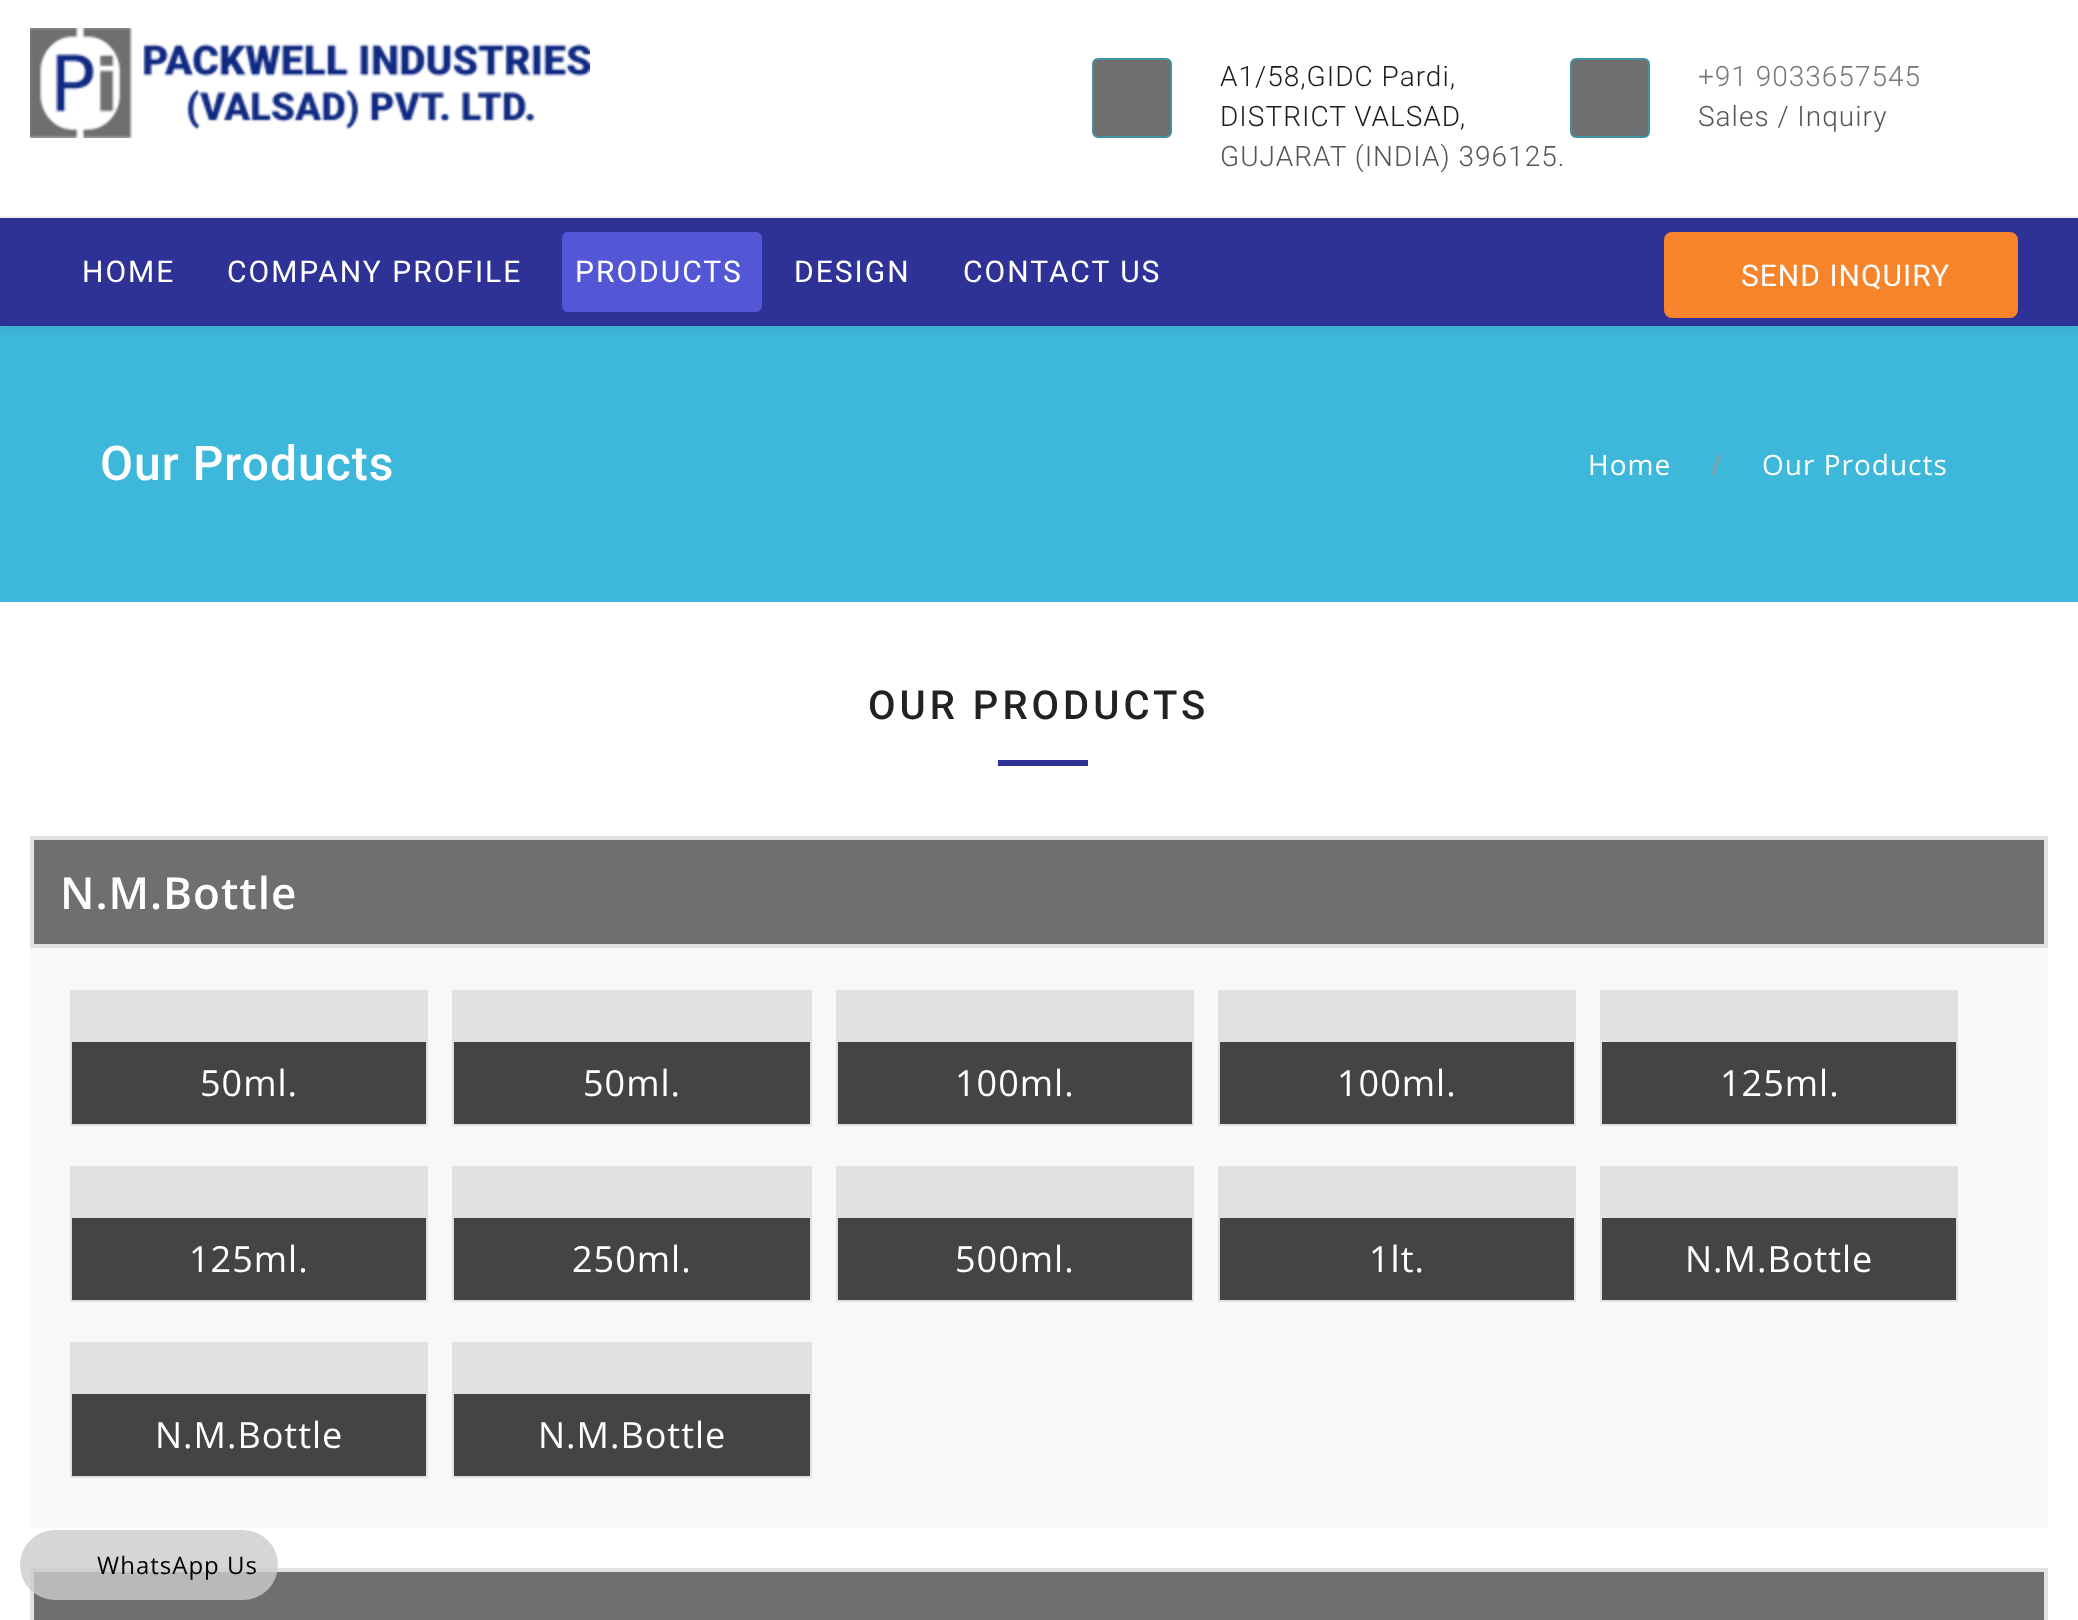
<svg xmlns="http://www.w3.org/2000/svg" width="2078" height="1620">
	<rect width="100%" height="100%" fill="#FFFFFF" />
	<image x="30" y="28" width="560" height="110" href="assets/img1.png" />
	<rect x="1093" y="59" width="78" height="78" rx="5" fill="#6E6F70" stroke="#4191A2" stroke-width="2" />
	<g font-family="Roboto" font-size="28" font-weight="300" letter-spacing="1" fill="#1C1C1C">
		<text x="1220" y="86">A1/58,GIDC Pardi,</text>
		<text x="1220" y="126">DISTRICT VALSAD,</text>
	</g>
	<text x="1220" y="166" font-family="Roboto" font-size="28" font-weight="300" letter-spacing="1" fill="#555555">GUJARAT (INDIA) 396125.</text>
	<rect x="1571" y="59" width="78" height="78" rx="5" fill="#6E6F70" stroke="#4191A2" stroke-width="2" />
	<text x="1698" y="86" font-family="Roboto" font-size="28" font-weight="300" letter-spacing="1" fill="#777777">+91 9033657545</text>
	<text x="1698" y="126" font-family="Roboto" font-size="28" font-weight="300" letter-spacing="1" fill="#555555">Sales / Inquiry</text>
	<rect x="0" y="326" width="2078" height="276" fill="#3DB8DB" />
	<rect x="0" y="222" width="2078" height="110" fill="#000000" fill-opacity="0.05" filter="blur(3px)" />
	<rect x="0" y="218" width="2078" height="108" fill="#2E3195" />
	<rect x="0" y="216" width="2078" height="2" fill="#EEEEEE" />
	<g font-family="Roboto" font-size="30" letter-spacing="2" fill="#FFFFFF">
		<text x="82" y="282">HOME</text>
		<text x="227" y="282">COMPANY PROFILE</text>
	</g>
	<rect x="562" y="232" width="200" height="80" rx="6" fill="#5357D6" />
	<g font-family="Roboto" font-size="30" letter-spacing="2" fill="#FFFFFF">
		<text x="575" y="282">PRODUCTS</text>
		<text x="794" y="282">DESIGN</text>
		<text x="963" y="282">CONTACT US</text>
	</g>
	<rect x="1666" y="234" width="350" height="82" rx="6" fill="#F7832A" stroke="#F7832A" stroke-width="4" />
	<text x="1741" y="286" font-family="Roboto" font-size="30" letter-spacing="1" fill="#FFFFFF">SEND INQUIRY</text>
	<rect x="32" y="1570" width="2014" height="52" fill="#6E6F70" stroke="#E2E2E2" stroke-width="4" />
	<rect x="20" y="1530" width="258" height="70" rx="35" fill="#CCCCCC" fill-opacity="0.8" />
	<text x="97" y="1574" font-family="Open Sans" font-size="24" letter-spacing="1" fill="#000000">WhatsApp Us</text>
	<text x="100" y="480" font-family="Roboto" font-size="48" font-weight="500" letter-spacing="1" fill="#FFFFFF">Our Products</text>
	<text x="1588" y="475" font-family="Open Sans" font-size="28" letter-spacing="1" fill="#FFFFFF">Home</text>
	<text x="1711" y="475" font-family="Open Sans" font-size="28" letter-spacing="1" fill="#999999">/</text>
	<text x="1762" y="475" font-family="Open Sans" font-size="28" letter-spacing="1" fill="#FFFFFF">Our Products</text>
	<text x="868" y="719" font-family="Roboto" font-size="40" font-weight="500" letter-spacing="4" fill="#222222">OUR PRODUCTS</text>
	<rect x="998" y="760" width="90" height="6" fill="#2E3195" />
	<rect x="32" y="838" width="2014" height="108" fill="#6E6F70" stroke="#E2E2E2" stroke-width="4" />
	<text x="60" y="909" font-family="Open Sans" font-size="44" font-weight="600" letter-spacing="1" fill="#FFFFFF">N.M.Bottle</text>
	<rect x="30" y="948" width="2018" height="580" fill="#F8F8F8" />
	<rect x="70" y="990" width="358" height="136" fill="#E1E1E1" />
	<rect x="72" y="1042" width="354" height="82" fill="#444444" />
	<text x="200" y="1096" font-family="Open Sans" font-size="36" letter-spacing="1" fill="#FFFFFF">50ml.</text>
	<rect x="452" y="990" width="360" height="136" fill="#E1E1E1" />
	<rect x="454" y="1042" width="356" height="82" fill="#444444" />
	<text x="583" y="1096" font-family="Open Sans" font-size="36" letter-spacing="1" fill="#FFFFFF">50ml.</text>
	<rect x="836" y="990" width="358" height="136" fill="#E1E1E1" />
	<rect x="838" y="1042" width="354" height="82" fill="#444444" />
	<text x="955" y="1096" font-family="Open Sans" font-size="36" letter-spacing="1" fill="#FFFFFF">100ml.</text>
	<rect x="1218" y="990" width="358" height="136" fill="#E1E1E1" />
	<rect x="1220" y="1042" width="354" height="82" fill="#444444" />
	<text x="1337" y="1096" font-family="Open Sans" font-size="36" letter-spacing="1" fill="#FFFFFF">100ml.</text>
	<rect x="1600" y="990" width="358" height="136" fill="#E1E1E1" />
	<rect x="1602" y="1042" width="354" height="82" fill="#444444" />
	<text x="1720" y="1096" font-family="Open Sans" font-size="36" letter-spacing="1" fill="#FFFFFF">125ml.</text>
	<rect x="70" y="1166" width="358" height="136" fill="#E1E1E1" />
	<rect x="72" y="1218" width="354" height="82" fill="#444444" />
	<text x="189" y="1272" font-family="Open Sans" font-size="36" letter-spacing="1" fill="#FFFFFF">125ml.</text>
	<rect x="452" y="1166" width="360" height="136" fill="#E1E1E1" />
	<rect x="454" y="1218" width="356" height="82" fill="#444444" />
	<text x="572" y="1272" font-family="Open Sans" font-size="36" letter-spacing="1" fill="#FFFFFF">250ml.</text>
	<rect x="836" y="1166" width="358" height="136" fill="#E1E1E1" />
	<rect x="838" y="1218" width="354" height="82" fill="#444444" />
	<text x="955" y="1272" font-family="Open Sans" font-size="36" letter-spacing="1" fill="#FFFFFF">500ml.</text>
	<rect x="1218" y="1166" width="358" height="136" fill="#E1E1E1" />
	<rect x="1220" y="1218" width="354" height="82" fill="#444444" />
	<text x="1369" y="1272" font-family="Open Sans" font-size="36" letter-spacing="1" fill="#FFFFFF">1lt.</text>
	<rect x="1600" y="1166" width="358" height="136" fill="#E1E1E1" />
	<rect x="1602" y="1218" width="354" height="82" fill="#444444" />
	<text x="1685" y="1272" font-family="Open Sans" font-size="36" letter-spacing="1" fill="#FFFFFF">N.M.Bottle</text>
	<rect x="70" y="1342" width="358" height="136" fill="#E1E1E1" />
	<rect x="72" y="1394" width="354" height="82" fill="#444444" />
	<text x="155" y="1448" font-family="Open Sans" font-size="36" letter-spacing="1" fill="#FFFFFF">N.M.Bottle</text>
	<rect x="452" y="1342" width="360" height="136" fill="#E1E1E1" />
	<rect x="454" y="1394" width="356" height="82" fill="#444444" />
	<text x="538" y="1448" font-family="Open Sans" font-size="36" letter-spacing="1" fill="#FFFFFF">N.M.Bottle</text>
</svg>
